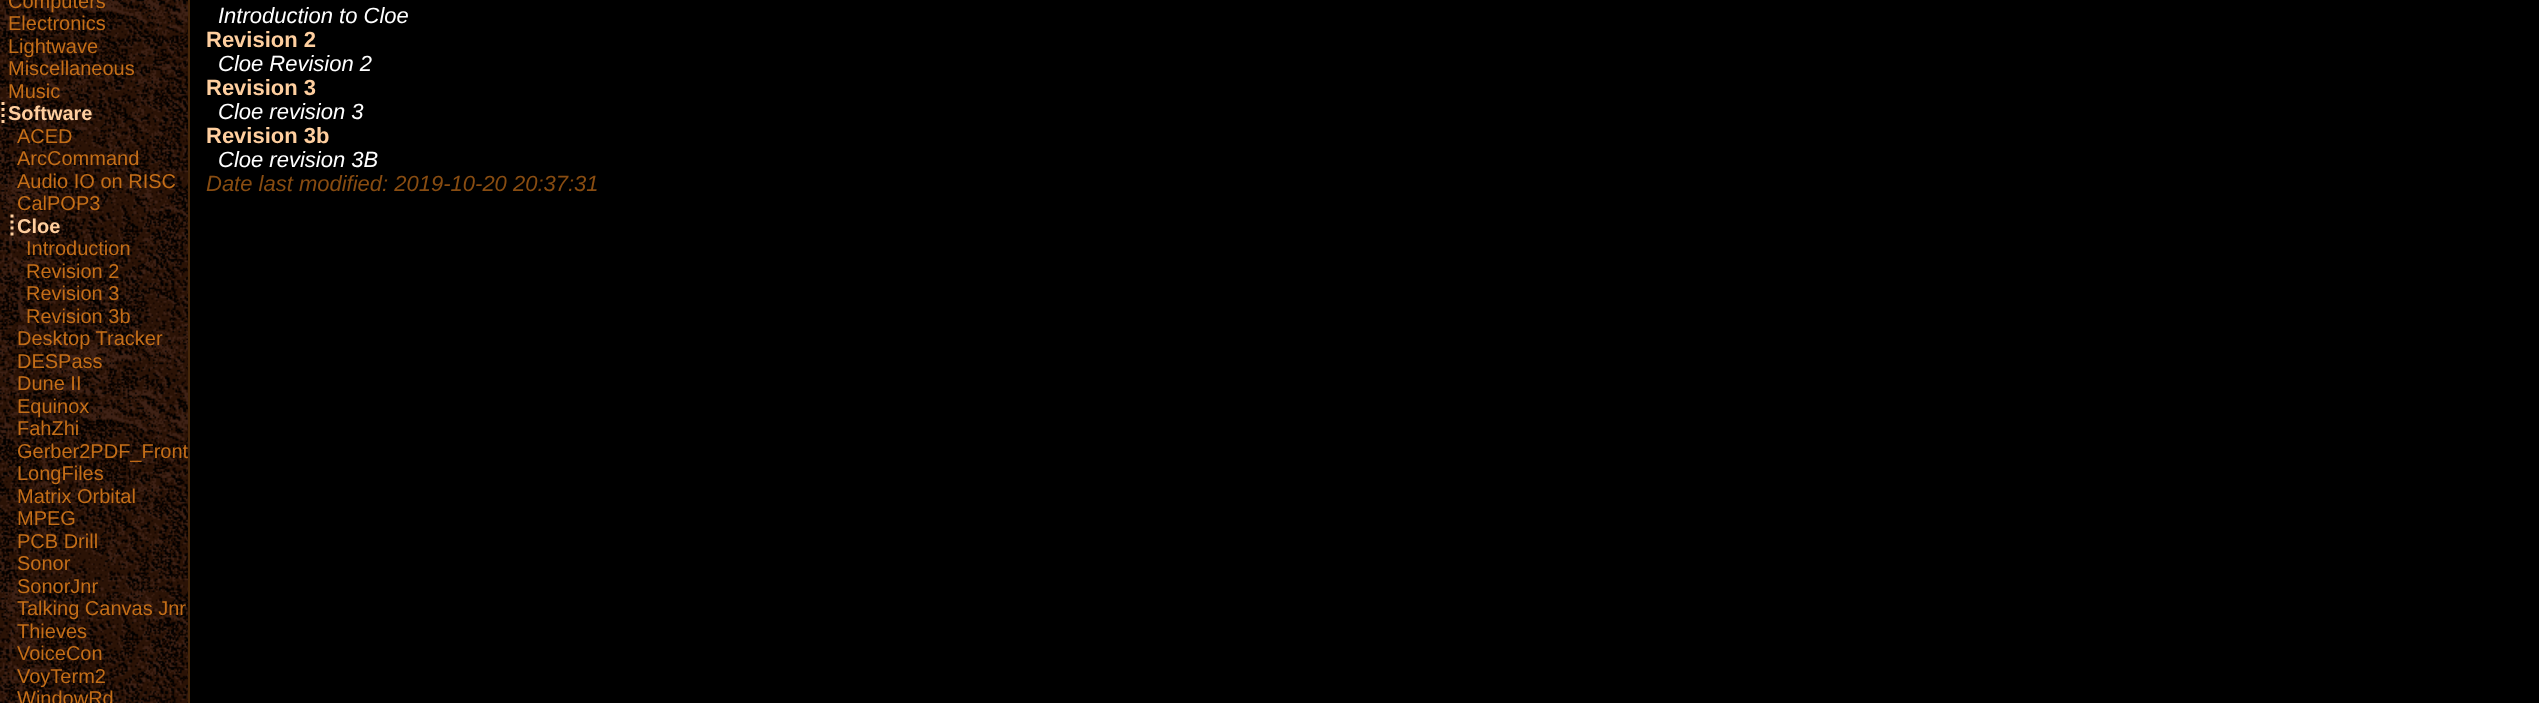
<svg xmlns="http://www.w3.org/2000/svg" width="2539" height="703">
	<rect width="100%" height="100%" fill="#FFFFFF" />
	<image x="0" y="0" width="188" height="703" href="assets/img1.png" />
	<g font-family="Liberation Sans" font-size="20" fill="#C46E18">
		<text x="8" y="8">Computers</text>
		<text x="8" y="30">Electronics</text>
		<text x="8" y="53">Lightwave</text>
		<text x="8" y="75">Miscellaneous</text>
		<text x="8" y="98">Music</text>
	</g>
	<text x="8" y="120" font-family="Liberation Sans" font-size="20" font-weight="700" fill="#FFCF9F">Software</text>
	<path d="M3 102V124.5" fill="none" stroke="#FFCF9F" stroke-width="3" stroke-dasharray="3 3" />
	<g font-family="Liberation Sans" font-size="20" fill="#C46E18">
		<text x="17" y="143">ACED</text>
		<text x="17" y="165">ArcCommand</text>
		<text x="17" y="188">Audio IO on RISC</text>
		<text x="17" y="210">CalPOP3</text>
	</g>
	<text x="17" y="233" font-family="Liberation Sans" font-size="20" font-weight="700" fill="#FFCF9F">Cloe</text>
	<path d="M12 214.5V237" fill="none" stroke="#FFCF9F" stroke-width="3" stroke-dasharray="3 3" />
	<g font-family="Liberation Sans" font-size="20" fill="#C46E18">
		<text x="26" y="255">Introduction</text>
		<text x="26" y="278">Revision 2</text>
		<text x="26" y="300">Revision 3</text>
		<text x="26" y="323">Revision 3b</text>
		<text x="17" y="345">Desktop Tracker</text>
		<text x="17" y="368">DESPass</text>
		<text x="17" y="390">Dune II</text>
		<text x="17" y="413">Equinox</text>
		<text x="17" y="435">FahZhi</text>
		<text x="17" y="458">Gerber2PDF_Front</text>
		<text x="17" y="480">LongFiles</text>
		<text x="17" y="503">Matrix Orbital</text>
		<text x="17" y="525">MPEG</text>
		<text x="17" y="548">PCB Drill</text>
		<text x="17" y="570">Sonor</text>
		<text x="17" y="593">SonorJnr</text>
		<text x="17" y="615">Talking Canvas Jnr</text>
		<text x="17" y="638">Thieves</text>
		<text x="17" y="660">VoiceCon</text>
		<text x="17" y="683">VoyTerm2</text>
		<text x="17" y="705">WindowRd</text>
	</g>
	<rect x="190" y="0" width="2349" height="703" fill="#000000" />
	<path d="M218-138H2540V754H218C201 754 188 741 188 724V-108C188-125 201-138 218-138ZM218-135H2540V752H218C203 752 190 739 190 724V-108C190-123 203-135 218-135Z" fill="#442609" fill-rule="evenodd" />
	<text x="218" y="23" font-family="Liberation Sans" font-size="22" font-style="italic" fill="#FFFFFF">Introduction to Cloe</text>
	<text x="206" y="47" font-family="Liberation Sans" font-size="22" font-weight="700" fill="#FFCF9F">Revision 2</text>
	<text x="218" y="71" font-family="Liberation Sans" font-size="22" font-style="italic" fill="#FFFFFF">Cloe Revision 2</text>
	<text x="206" y="95" font-family="Liberation Sans" font-size="22" font-weight="700" fill="#FFCF9F">Revision 3</text>
	<text x="218" y="119" font-family="Liberation Sans" font-size="22" font-style="italic" fill="#FFFFFF">Cloe revision 3</text>
	<text x="206" y="143" font-family="Liberation Sans" font-size="22" font-weight="700" fill="#FFCF9F">Revision 3b</text>
	<text x="218" y="167" font-family="Liberation Sans" font-size="22" font-style="italic" fill="#FFFFFF">Cloe revision 3B</text>
	<text x="206" y="191" font-family="Liberation Sans" font-size="22" font-style="italic" fill="#884C11">Date last modified: 2019-10-20 20:37:31</text>
</svg>
